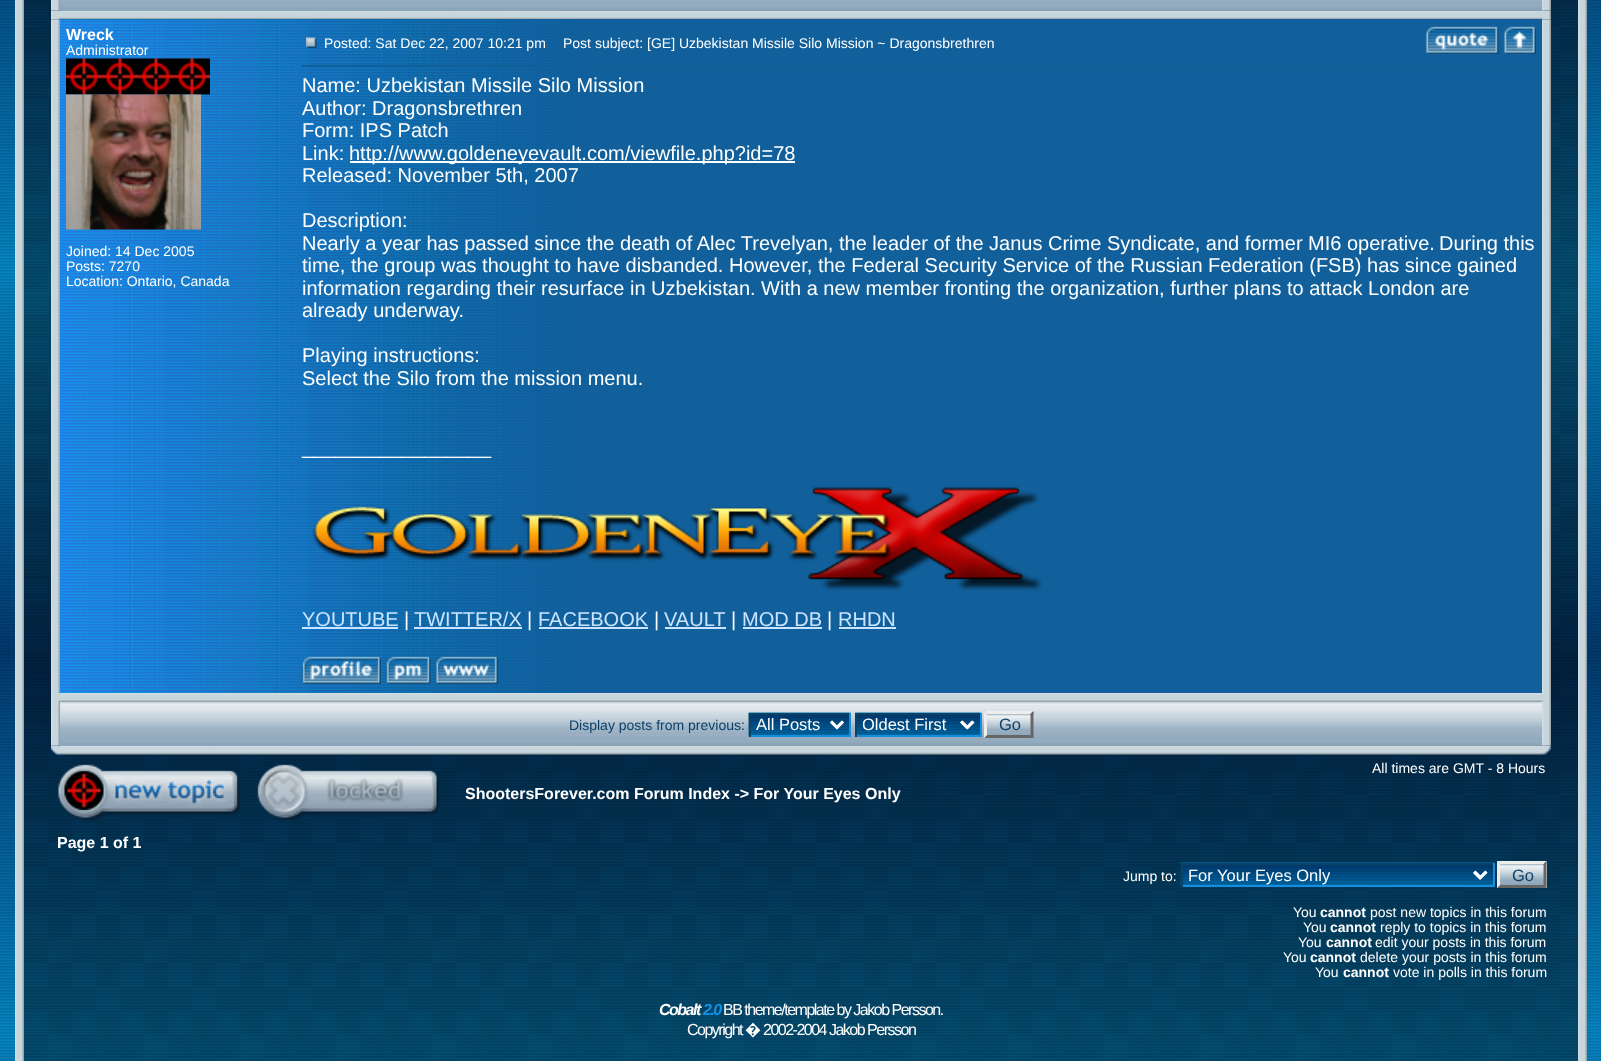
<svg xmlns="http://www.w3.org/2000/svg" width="1601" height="1061">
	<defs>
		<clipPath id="clip1"><rect x="863" y="714" width="93" height="21" /></clipPath>
	</defs>
	<rect width="100%" height="100%" fill="#FFFFFF" />
	<image x="0" y="0" width="1601" height="1061" href="assets/img1.png" />
	<image x="15" y="0" width="9" height="1061" href="assets/img2.png" />
	<image x="24" y="0" width="1554" height="1061" href="assets/img3.png" />
	<image x="51" y="0" width="9" height="11" href="assets/img4.png" />
	<image x="60" y="10" width="500" height="1" href="assets/img5.png" />
	<image x="60" y="0" width="1482" height="11" href="assets/img6.png" />
	<image x="1542" y="0" width="9" height="11" href="assets/img7.png" />
	<image x="51" y="10" width="9" height="10" href="assets/img8.png" />
	<image x="60" y="10" width="1482" height="9" href="assets/img9.png" />
	<image x="1542" y="10" width="9" height="10" href="assets/img10.png" />
	<image x="51" y="19" width="9" height="674" href="assets/img11.png" />
	<rect x="60" y="19" width="1482" height="674" fill="#11609B" />
	<image x="60" y="19" width="519" height="674" href="assets/img12.png" />
	<text x="66" y="40" font-family="Liberation Sans" font-size="16" font-weight="700" fill="#FFFFFF">Wreck</text>
	<text x="66" y="55" font-family="Liberation Sans" font-size="14" fill="#FFFFFF">Administrator</text>
	<image x="66" y="58" width="144" height="37" href="assets/img13.png" />
	<image x="66" y="94" width="135" height="136" href="assets/img14.png" />
	<g font-family="Liberation Sans" font-size="14" fill="#FFFFFF">
		<text x="66" y="256">Joined: 14 Dec 2005</text>
		<text x="66" y="271">Posts: 7270</text>
		<text x="66" y="286">Location: Ontario, Canada</text>
	</g>
	<image x="306" y="37" width="11" height="11" href="assets/img15.png" />
	<g font-family="Liberation Sans" font-size="14" fill="#FFFFFF">
		<text x="324" y="48">Posted: Sat Dec 22, 2007 10:21 pm</text>
		<text x="563" y="48">Post subject: [GE] Uzbekistan Missile Silo Mission ~ Dragonsbrethren</text>
	</g>
	<image x="1425" y="26" width="74" height="28" href="assets/img16.png" />
	<image x="1503" y="26" width="33" height="28" href="assets/img17.png" />
	<rect x="302" y="65" width="1234" height="2" fill="#105F98" />
	<g font-family="Liberation Sans" font-size="20" fill="#FFFFFF">
		<text x="302" y="92">Name: Uzbekistan Missile Silo Mission</text>
		<text x="302" y="115">Author: Dragonsbrethren</text>
		<text x="302" y="137">Form: IPS Patch</text>
		<text x="302" y="160">Link:</text>
	</g>
	<rect x="350" y="161" width="445" height="2" fill="#FFFFFF" />
	<g font-family="Liberation Sans" font-size="20" fill="#FFFFFF">
		<text x="349" y="160">http://www.goldeneyevault.com/viewfile.php?id=78</text>
		<text x="302" y="182">Released: November 5th, 2007</text>
		<text x="302" y="227">Description:</text>
		<text x="302" y="250">Nearly a year has passed since the death of Alec Trevelyan, the leader of the Janus Crime Syndicate, and former MI6 operative.</text>
		<text x="1439" y="250">During this</text>
		<text x="302" y="272">time, the group was thought to have disbanded. However, the Federal Security Service of the Russian Federation (FSB) has since gained</text>
		<text x="302" y="295">information regarding their resurface in Uzbekistan. With a new member fronting the organization, further plans to attack London are</text>
		<text x="302" y="317">already underway.</text>
		<text x="302" y="362">Playing instructions:</text>
		<text x="302" y="385">Select the Silo from the mission menu.</text>
		<text x="302" y="454">_________________</text>
	</g>
	<image x="312" y="487" width="730" height="104" href="assets/img18.png" />
	<text x="302" y="626" font-family="Liberation Sans" font-size="20" fill="#CAE4FF">YOUTUBE</text>
	<rect x="302" y="627" width="96" height="2" fill="#CAE4FF" />
	<text x="404" y="626" font-family="Liberation Sans" font-size="20" fill="#FFFFFF">|</text>
	<text x="414" y="626" font-family="Liberation Sans" font-size="20" fill="#CAE4FF">TWITTER/X</text>
	<rect x="414" y="627" width="108" height="2" fill="#CAE4FF" />
	<text x="527" y="626" font-family="Liberation Sans" font-size="20" fill="#FFFFFF">|</text>
	<text x="538" y="626" font-family="Liberation Sans" font-size="20" fill="#CAE4FF">FACEBOOK</text>
	<rect x="539" y="627" width="109" height="2" fill="#CAE4FF" />
	<text x="654" y="626" font-family="Liberation Sans" font-size="20" fill="#FFFFFF">|</text>
	<text x="664" y="626" font-family="Liberation Sans" font-size="20" fill="#CAE4FF">VAULT</text>
	<rect x="665" y="627" width="61" height="2" fill="#CAE4FF" />
	<text x="731" y="626" font-family="Liberation Sans" font-size="20" fill="#FFFFFF">|</text>
	<text x="742" y="626" font-family="Liberation Sans" font-size="20" fill="#CAE4FF">MOD DB</text>
	<rect x="743" y="627" width="79" height="2" fill="#CAE4FF" />
	<text x="827" y="626" font-family="Liberation Sans" font-size="20" fill="#FFFFFF">|</text>
	<text x="838" y="626" font-family="Liberation Sans" font-size="20" fill="#CAE4FF">RHDN</text>
	<rect x="839" y="627" width="57" height="2" fill="#CAE4FF" />
	<image x="301" y="656" width="80" height="28" href="assets/img19.png" />
	<image x="385" y="656" width="46" height="28" href="assets/img20.png" />
	<image x="435" y="656" width="64" height="28" href="assets/img21.png" />
	<image x="1542" y="19" width="9" height="674" href="assets/img22.png" />
	<image x="51" y="693" width="9" height="9" href="assets/img23.png" />
	<image x="60" y="693" width="1482" height="9" href="assets/img24.png" />
	<image x="1542" y="693" width="9" height="9" href="assets/img25.png" />
	<image x="51" y="702" width="9" height="44" href="assets/img26.png" />
	<image x="60" y="745" width="519" height="1" href="assets/img27.png" />
	<image x="60" y="702" width="1482" height="44" href="assets/img28.png" />
	<text x="569" y="730" font-family="Liberation Sans" font-size="14" fill="#0D406A">Display posts from previous:</text>
	<image x="748" y="712" width="103" height="25" href="assets/img29.png" />
	<rect x="749" y="713" width="102" height="2" fill="#0D4267" />
	<rect x="849" y="713" width="2" height="24" fill="#178DDF" />
	<rect x="749" y="735" width="102" height="2" fill="#178DDF" />
	<rect x="749" y="713" width="2" height="24" fill="#0D4267" />
	<path d="M831 721.5L837 727.5L843 721.5" fill="none" stroke="#FFFFFF" stroke-width="3" />
	<text x="756" y="730" font-family="Liberation Sans" font-size="16.5" fill="#FFFFFF">All Posts</text>
	<image x="855" y="712" width="126" height="23" href="assets/img30.png" />
	<rect x="855" y="713" width="126" height="2" fill="#0D4267" />
	<rect x="980" y="713" width="2" height="24" fill="#178DDF" />
	<rect x="855" y="735" width="126" height="2" fill="#178DDF" />
	<rect x="855" y="713" width="2" height="24" fill="#0D4267" />
	<path d="M961 721.5L967 727.5L973 721.5" fill="none" stroke="#FFFFFF" stroke-width="3" />
	<g clip-path="url(#clip1)">
		<text x="862" y="730" font-family="Liberation Sans" font-size="16.5" fill="#FFFFFF">Oldest First</text>
	</g>
	<image x="984" y="711" width="50" height="27" href="assets/img31.png" />
	<path d="M984 711H1034L1030 714H987Z" fill="#EEEEEE" />
	<path d="M1033.5 711V738L1030.5 735V714Z" fill="#666666" />
	<path d="M1034 738H984L987 735H1030Z" fill="#666666" />
	<path d="M984 738V711L987 714V735Z" fill="#EEEEEE" />
	<text x="999" y="730" font-family="Liberation Sans" font-size="16.5" fill="#0D406A">Go</text>
	<image x="1542" y="702" width="9" height="44" href="assets/img32.png" />
	<image x="51" y="745" width="9" height="10" href="assets/img33.png" />
	<image x="60" y="745" width="1482" height="10" href="assets/img34.png" />
	<image x="1542" y="745" width="9" height="10" href="assets/img35.png" />
	<image x="58" y="764" width="183" height="58" href="assets/img36.png" />
	<image x="257" y="764" width="184" height="58" href="assets/img37.png" />
	<text x="465" y="799" font-family="Liberation Sans" font-size="16" font-weight="700" fill="#FFFFFF">ShootersForever.com Forum Index -&gt; For Your Eyes Only</text>
	<text x="1372" y="773" font-family="Liberation Sans" font-size="14" fill="#FFFFFF">All times are GMT - 8 Hours</text>
	<text x="57" y="848" font-family="Liberation Sans" font-size="16" font-weight="700" fill="#FFFFFF">Page 1 of 1</text>
	<text x="1123" y="881" font-family="Liberation Sans" font-size="14" fill="#FFFFFF">Jump to:</text>
	<image x="1180" y="862" width="314" height="25" href="assets/img38.png" />
	<rect x="1181" y="863" width="313" height="2" fill="#0D4267" />
	<rect x="1493" y="863" width="2" height="24" fill="#178DDF" />
	<rect x="1181" y="885" width="313" height="2" fill="#178DDF" />
	<rect x="1181" y="863" width="2" height="24" fill="#0D4267" />
	<path d="M1474 872L1480 878L1486 872" fill="none" stroke="#FFFFFF" stroke-width="3" />
	<text x="1188" y="881" font-family="Liberation Sans" font-size="16.5" fill="#FFFFFF">For Your Eyes Only</text>
	<rect x="1546" y="861" width="1" height="27" fill="#FAFAFA" />
	<image x="1497" y="861" width="50" height="27" href="assets/img39.png" />
	<path d="M1497 861H1546L1544 864H1500Z" fill="#EEEEEE" />
	<path d="M1546.5 861V888L1543.5 885V864Z" fill="#666666" />
	<path d="M1546 888H1497L1500 885H1544Z" fill="#666666" />
	<path d="M1497 888V861L1500 864V885Z" fill="#EEEEEE" />
	<text x="1512" y="881" font-family="Liberation Sans" font-size="16.5" fill="#0D406A">Go</text>
	<text x="1293" y="917" font-family="Liberation Sans" font-size="14" fill="#FFFFFF">You</text>
	<text x="1320" y="917" font-family="Liberation Sans" font-size="14" font-weight="700" fill="#FFFFFF">cannot</text>
	<g font-family="Liberation Sans" font-size="14" fill="#FFFFFF">
		<text x="1370" y="917">post new topics in this forum</text>
		<text x="1303" y="932">You</text>
	</g>
	<text x="1330" y="932" font-family="Liberation Sans" font-size="14" font-weight="700" fill="#FFFFFF">cannot</text>
	<g font-family="Liberation Sans" font-size="14" fill="#FFFFFF">
		<text x="1380" y="932">reply to topics in this forum</text>
		<text x="1298" y="947">You</text>
	</g>
	<text x="1326" y="947" font-family="Liberation Sans" font-size="14" font-weight="700" fill="#FFFFFF">cannot</text>
	<g font-family="Liberation Sans" font-size="14" fill="#FFFFFF">
		<text x="1375" y="947">edit your posts in this forum</text>
		<text x="1283" y="962">You</text>
	</g>
	<text x="1310" y="962" font-family="Liberation Sans" font-size="14" font-weight="700" fill="#FFFFFF">cannot</text>
	<g font-family="Liberation Sans" font-size="14" fill="#FFFFFF">
		<text x="1360" y="962">delete your posts in this forum</text>
		<text x="1315" y="977">You</text>
	</g>
	<text x="1343" y="977" font-family="Liberation Sans" font-size="14" font-weight="700" fill="#FFFFFF">cannot</text>
	<text x="1393" y="977" font-family="Liberation Sans" font-size="14" fill="#FFFFFF">vote in polls in this forum</text>
	<text x="659" y="1015" font-family="Liberation Sans" font-size="16" font-weight="700" font-style="italic" letter-spacing="-1.5" fill="#FFFFFF">Cobalt</text>
	<text x="703" y="1015" font-family="Liberation Sans" font-size="16" font-weight="700" font-style="italic" letter-spacing="-1.5" fill="#1094E7">2.0</text>
	<g font-family="Liberation Sans" font-size="16" letter-spacing="-1.5" fill="#FFFFFF">
		<text x="723" y="1015">BB theme/template by Jakob Persson.</text>
		<text x="687" y="1035">Copyright</text>
	</g>
	<text x="745" y="1035" font-family="Noto Sans" font-size="16" letter-spacing="-1.5" fill="#FFFFFF">�</text>
	<text x="763" y="1035" font-family="Liberation Sans" font-size="16" letter-spacing="-1.5" fill="#FFFFFF">2002-2004 Jakob Persson</text>
	<image x="1578" y="0" width="9" height="1061" href="assets/img2.png" />
</svg>
